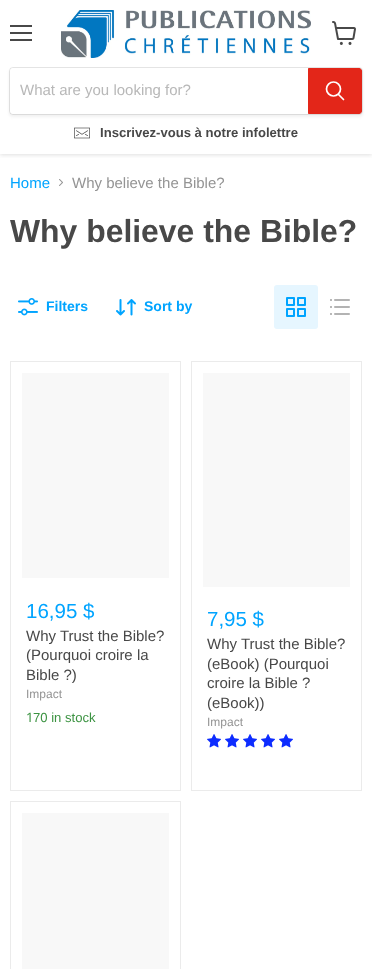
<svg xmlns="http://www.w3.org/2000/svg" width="372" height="969">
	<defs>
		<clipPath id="clip1"><rect x="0" y="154" width="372" height="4" /></clipPath>
	</defs>
	<rect width="100%" height="100%" fill="#FFFFFF" />
	<g clip-path="url(#clip1)">
		<rect x="0" y="1" width="372" height="154" fill="#808080" fill-opacity="0.25" filter="blur(2px)" />
	</g>
	<rect x="10" y="25" width="22" height="2" fill="#484848" />
	<rect x="10" y="32" width="22" height="2" fill="#484848" />
	<rect x="10" y="39" width="22" height="2" fill="#484848" />
	<image x="332" y="21" width="24" height="24" href="assets/img1.png" />
	<image x="61" y="10" width="250" height="48" href="assets/img2.png" />
	<rect x="9" y="69" width="354" height="48" rx="4" fill="#808080" fill-opacity="0.11" filter="blur(1.5px)" />
	<rect x="9.5" y="67.5" width="353" height="47" rx="3.5" fill="none" stroke="#808080" stroke-opacity="0.2" />
	<path d="M13 68H308V114H13C11.5 114 10 112.5 10 111V71C10 69.5 11.5 68 13 68Z" fill="#FFFFFF" />
	<text x="20" y="95" font-family="Liberation Sans" font-size="15" fill="#B8B8B8">What are you looking for?</text>
	<path d="M308.5 68.5H359C360.5 68.5 361.5 69.5 361.5 71V111C361.5 112.5 360.5 113.5 359 113.5H308.5Z" fill="#E32619" stroke="#E32619" />
	<path d="M343.5 99.5L338.5 94.5" fill="none" stroke="#FFFFFF" stroke-width="1.7" stroke-linecap="round" />
	<circle cx="333.5" cy="89" r="7" fill="none" stroke="#FFFFFF" stroke-width="1.7" />
	<image x="74" y="127" width="16" height="12" href="assets/img3.png" />
	<text x="100" y="137" font-family="Liberation Sans" font-size="13.1" font-weight="700" fill="#484848">Inscrivez-vous à notre infolettre</text>
	<text x="10" y="188" font-family="Liberation Sans" font-size="15" fill="#00A4FF">Home</text>
	<image x="59" y="179" width="4" height="7" href="assets/img4.png" />
	<text x="72" y="188" font-family="Liberation Sans" font-size="15" fill="#949494">Why believe the Bible?</text>
	<text x="10" y="242" font-family="Liberation Sans" font-size="31.9" font-weight="700" fill="#484848">Why believe the Bible?</text>
	<image x="18" y="298" width="20" height="18" href="assets/img5.png" />
	<text x="46" y="311" font-family="Liberation Sans" font-size="14" font-weight="700" fill="#00A4FF">Filters</text>
	<image x="116" y="299" width="20" height="17" href="assets/img6.png" />
	<text x="144" y="311" font-family="Liberation Sans" font-size="14" font-weight="700" fill="#00A4FF">Sort by</text>
	<rect x="274" y="285" width="44" height="44" rx="3" fill="#E6F6FF" />
	<image x="286" y="297" width="20" height="20" href="assets/img7.png" />
	<image x="330" y="299" width="20" height="16" href="assets/img8.png" />
	<rect x="10.5" y="361.5" width="170" height="429" fill="none" stroke="#EBEBEB" />
	<rect x="22" y="373" width="147" height="205" fill="#F8F8F8" />
	<text x="26" y="618" font-family="Liberation Sans" font-size="20.5" fill="#00A4FF">16,95 $</text>
	<g font-family="Liberation Sans" font-size="15" fill="#484848">
		<text x="26" y="641">Why Trust the Bible?</text>
		<text x="26" y="660">(Pourquoi croire la</text>
		<text x="26" y="680">Bible ?)</text>
	</g>
	<text x="26" y="698" font-family="Liberation Sans" font-size="12" fill="#949494">Impact</text>
	<text x="26" y="722" font-family="Noto Sans" font-size="13.1" fill="#3C9342">1</text>
	<text x="33" y="722" font-family="Liberation Sans" font-size="13.1" fill="#3C9342">70 in stock</text>
	<rect x="191.5" y="361.5" width="170" height="429" fill="none" stroke="#EBEBEB" />
	<rect x="203" y="373" width="147" height="214" fill="#F8F8F8" />
	<text x="207" y="626" font-family="Liberation Sans" font-size="20.5" fill="#00A4FF">7,95 $</text>
	<g font-family="Liberation Sans" font-size="15" fill="#484848">
		<text x="207" y="649">Why Trust the Bible?</text>
		<text x="207" y="669">(eBook) (Pourquoi</text>
		<text x="207" y="688">croire la Bible ?</text>
		<text x="207" y="708">(eBook))</text>
	</g>
	<text x="207" y="726" font-family="Liberation Sans" font-size="12" fill="#949494">Impact</text>
	<image x="207" y="734" width="14" height="14" href="assets/img9.png" />
	<image x="225" y="734" width="14" height="14" href="assets/img9.png" />
	<image x="243" y="734" width="14" height="14" href="assets/img9.png" />
	<image x="261" y="734" width="14" height="14" href="assets/img9.png" />
	<image x="279" y="734" width="14" height="14" href="assets/img9.png" />
	<rect x="10.5" y="801.5" width="170" height="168" fill="none" stroke="#EBEBEB" />
	<rect x="22" y="813" width="147" height="156" fill="#F8F8F8" />
</svg>
